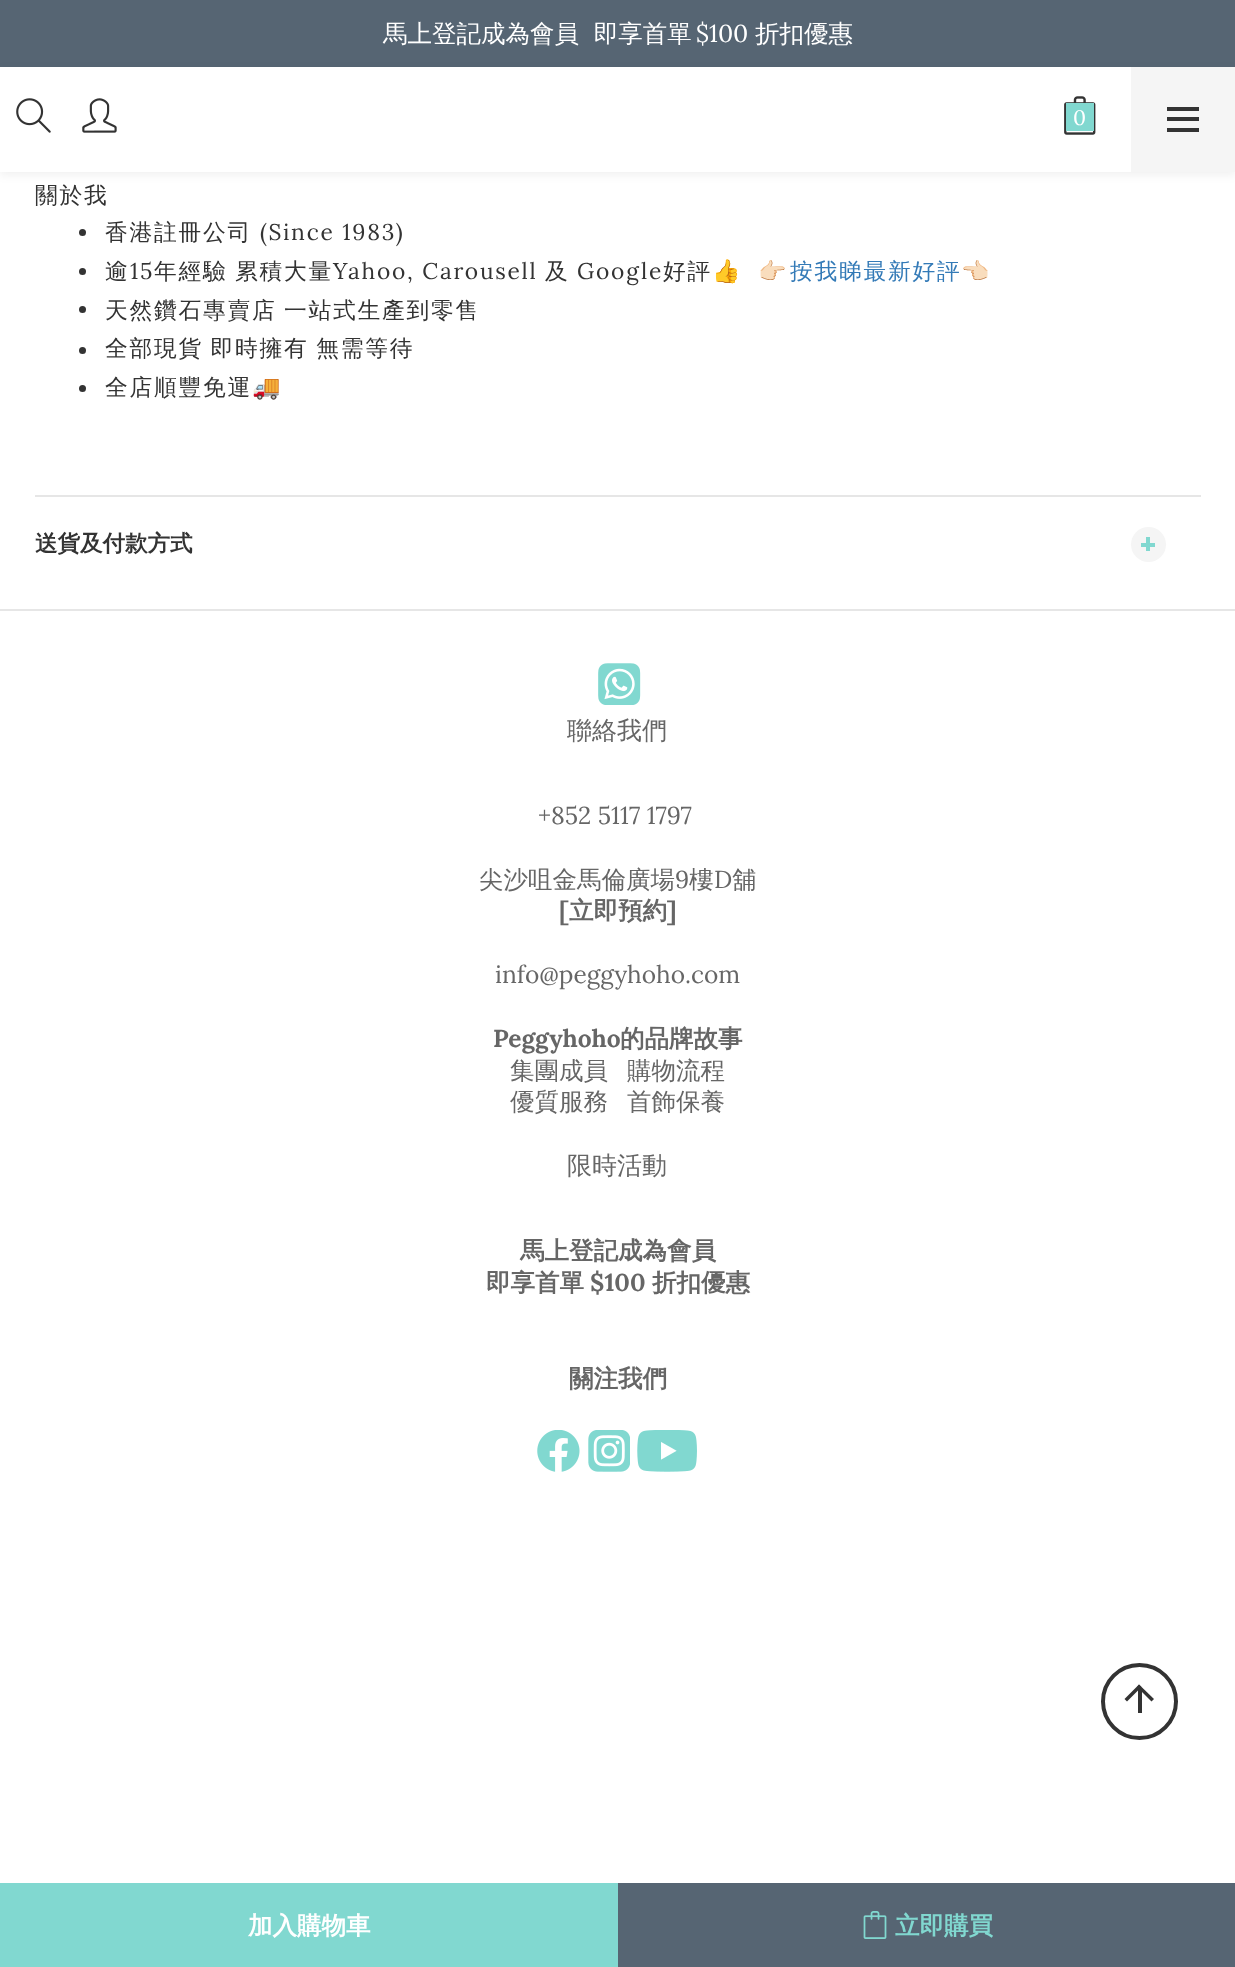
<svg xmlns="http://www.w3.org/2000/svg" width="1235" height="1967">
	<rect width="100%" height="100%" fill="#FFFFFF" />
	<rect x="0" y="0" width="1235" height="67" fill="#566573" />
	<text x="383" y="42" font-family="WenQuanYi Zen Hei" font-size="24.5" font-weight="500" fill="#FFFFFF" xml:space="preserve">馬上登記成為會員  即享首單</text>
	<text x="696" y="42" font-family="Lora" font-size="24.5" fill="#FFFFFF">$100</text>
	<text x="755" y="42" font-family="WenQuanYi Zen Hei" font-size="24.5" font-weight="500" fill="#FFFFFF">折扣優惠</text>
	<rect x="0" y="70" width="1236" height="105" fill="#000000" fill-opacity="0.06" filter="blur(5px)" />
	<rect x="0" y="67" width="1131" height="105" fill="#FFFFFF" />
	<image x="16" y="98" width="35" height="35" href="assets/img1.png" />
	<image x="82" y="98" width="35" height="35" href="assets/img2.png" />
	<image x="1064" y="96" width="32" height="39" href="assets/img3.png" />
	<rect x="1066" y="103" width="28" height="28" fill="#81D8D0" />
	<text x="1073" y="125" font-family="Lora" font-size="21" fill="#FFFFFF">0</text>
	<rect x="1131" y="67" width="104" height="105" fill="#F5F5F5" />
	<rect x="1167" y="117" width="32" height="4" fill="#333333" />
	<rect x="1167" y="107" width="32" height="4" fill="#333333" />
	<rect x="1167" y="128" width="32" height="4" fill="#333333" />
	<text x="35" y="203" font-family="WenQuanYi Zen Hei" font-size="22.75" font-weight="500" letter-spacing="1.75" fill="#333333">關於我</text>
	<circle cx="82.5" cy="232.5" r="3.5" fill="#333333" />
	<text x="105" y="240" font-family="WenQuanYi Zen Hei" font-size="22.75" font-weight="500" letter-spacing="1.75" fill="#333333">香港註冊公司</text>
	<text x="260" y="240" font-family="Lora" font-size="22.75" letter-spacing="1.75" fill="#333333">(Since 1983)</text>
	<circle cx="82.5" cy="271.5" r="3.5" fill="#333333" />
	<text x="105" y="279" font-family="WenQuanYi Zen Hei" font-size="22.75" font-weight="500" letter-spacing="1.75" fill="#333333">逾</text>
	<text x="130" y="279" font-family="Lora" font-size="22.75" letter-spacing="1.75" fill="#333333">15</text>
	<g font-family="WenQuanYi Zen Hei" font-size="22.75" font-weight="500" letter-spacing="1.75" fill="#333333">
		<text x="154" y="279">年經驗</text>
		<text x="235" y="279">累積大量</text>
	</g>
	<text x="333" y="279" font-family="Lora" font-size="22.75" letter-spacing="1.75" fill="#333333">Yahoo, Carousell</text>
	<text x="545" y="279" font-family="WenQuanYi Zen Hei" font-size="22.75" font-weight="500" letter-spacing="1.75" fill="#333333">及</text>
	<text x="577" y="279" font-family="Lora" font-size="22.75" letter-spacing="1.75" fill="#333333">Google</text>
	<text x="663" y="279" font-family="WenQuanYi Zen Hei" font-size="22.75" font-weight="500" letter-spacing="1.75" fill="#333333">好評</text>
	<text x="712" y="279" font-family="Noto Color Emoji" font-size="22.75" letter-spacing="1.75" fill="#333333">👍</text>
	<text x="758" y="279" font-family="Noto Color Emoji" font-size="22.75" letter-spacing="1.75" fill="#337AB7">👉🏻</text>
	<text x="790" y="279" font-family="WenQuanYi Zen Hei" font-size="22.75" font-weight="500" letter-spacing="1.75" fill="#337AB7">按我睇最新好評</text>
	<text x="961" y="279" font-family="Noto Color Emoji" font-size="22.75" letter-spacing="1.75" fill="#337AB7">👈🏻</text>
	<circle cx="82.5" cy="309.5" r="3.5" fill="#333333" />
	<text x="105" y="318" word-spacing="-1" font-family="WenQuanYi Zen Hei" font-size="22.75" font-weight="500" letter-spacing="1.75" fill="#333333">天然鑽石專賣店 一站式生產到零售</text>
	<circle cx="82.5" cy="350.5" r="3.5" fill="#333333" />
	<text x="105" y="356" word-spacing="-1" font-family="WenQuanYi Zen Hei" font-size="22.75" font-weight="500" letter-spacing="1.75" fill="#333333">全部現貨 即時擁有 無需等待</text>
	<circle cx="82.5" cy="388.5" r="3.5" fill="#333333" />
	<text x="105" y="395" font-family="WenQuanYi Zen Hei" font-size="22.75" font-weight="500" letter-spacing="1.75" fill="#333333">全店順豐免運</text>
	<text x="252" y="395" font-family="Noto Color Emoji" font-size="22.75" letter-spacing="1.75" fill="#333333">🚚</text>
	<rect x="35" y="495" width="1166" height="2" fill="#E6E6E6" />
	<text x="35" y="551" font-family="WenQuanYi Zen Hei" font-size="22.5" font-weight="700" fill="#333333">送貨及付款方式</text>
	<circle cx="1148.5" cy="544.5" r="17.5" fill="#F5F5F5" />
	<rect x="1141" y="543" width="14" height="4" fill="#81D8D0" />
	<rect x="1146" y="537" width="4" height="14" fill="#81D8D0" />
	<rect x="0" y="1883" width="618" height="84" fill="#81D8D0" />
	<text x="248" y="1934" font-family="WenQuanYi Zen Hei" font-size="24.5" font-weight="700" fill="#FFFFFF">加入購物車</text>
	<rect x="618" y="1883" width="617" height="84" fill="#566573" />
	<image x="863" y="1911" width="24" height="28" href="assets/img4.png" />
	<text x="895" y="1934" font-family="WenQuanYi Zen Hei" font-size="24.5" font-weight="700" fill="#81D8D0">立即購買</text>
	<rect x="0" y="609" width="1235" height="2" fill="#E6E6E6" />
	<image x="598" y="663" width="43" height="42" href="assets/img5.png" />
	<text x="567" y="739" font-family="WenQuanYi Zen Hei" font-size="25" font-weight="500" fill="#666666">聯絡我們</text>
	<text x="538" y="824" font-family="Lora" font-size="24.5" fill="#666666">+852 5117 1797</text>
	<text x="479" y="888" font-family="WenQuanYi Zen Hei" font-size="24.5" font-weight="500" fill="#666666">尖沙咀金馬倫廣場</text>
	<text x="675" y="888" font-family="Lora" font-size="24.5" fill="#666666">9</text>
	<text x="689" y="888" font-family="WenQuanYi Zen Hei" font-size="24.5" font-weight="500" fill="#666666">樓</text>
	<text x="714" y="888" font-family="Lora" font-size="24.5" fill="#666666">D</text>
	<text x="732" y="888" font-family="WenQuanYi Zen Hei" font-size="24.5" font-weight="500" fill="#666666">舖</text>
	<text x="559" y="919" font-family="Lora" font-size="24.5" font-weight="700" fill="#666666">[</text>
	<text x="569" y="919" font-family="WenQuanYi Zen Hei" font-size="24.5" font-weight="700" fill="#666666">立即預約</text>
	<text x="667" y="919" font-family="Lora" font-size="24.5" font-weight="700" fill="#666666">]</text>
	<text x="495" y="983" font-family="Lora" font-size="24.5" fill="#666666">info@peggyhoho.com</text>
	<text x="493" y="1047" font-family="Lora" font-size="24.5" font-weight="700" fill="#666666">Peggyhoho</text>
	<text x="620" y="1047" font-family="WenQuanYi Zen Hei" font-size="24.5" font-weight="700" fill="#666666">的品牌故事</text>
	<g font-family="WenQuanYi Zen Hei" font-size="24.5" font-weight="500" fill="#666666">
		<text x="510" y="1079">集團成員</text>
		<text x="627" y="1079">購物流程</text>
		<text x="510" y="1110">優質服務</text>
		<text x="627" y="1110">首飾保養</text>
	</g>
	<text x="567" y="1174" font-family="WenQuanYi Zen Hei" font-size="25" font-weight="500" fill="#666666">限時活動</text>
	<g font-family="WenQuanYi Zen Hei" font-size="24.5" font-weight="700" fill="#666666">
		<text x="520" y="1259">馬上登記成為會員</text>
		<text x="486" y="1291">即享首單</text>
	</g>
	<text x="590" y="1291" font-family="Lora" font-size="24.5" font-weight="700" fill="#666666">$100</text>
	<g font-family="WenQuanYi Zen Hei" font-size="24.5" font-weight="700" fill="#666666">
		<text x="652" y="1291">折扣優惠</text>
		<text x="569" y="1387">關注我們</text>
	</g>
	<image x="537" y="1430" width="43" height="42" href="assets/img6.png" />
	<image x="588" y="1430" width="42" height="42" href="assets/img7.png" />
	<image x="637" y="1430" width="60" height="42" href="assets/img8.png" />
	<circle cx="1139.5" cy="1701.5" r="36.5" fill="none" stroke="#333333" stroke-width="4" />
	<path d="M1139 1684.5L1154 1699L1151.5 1701.5L1137 1687Z" fill="#333333" />
	<path d="M1139 1684.5L1141.5 1687L1127 1701.5L1124.5 1699Z" fill="#333333" />
	<rect x="1138" y="1689" width="4" height="24" fill="#333333" />
</svg>
